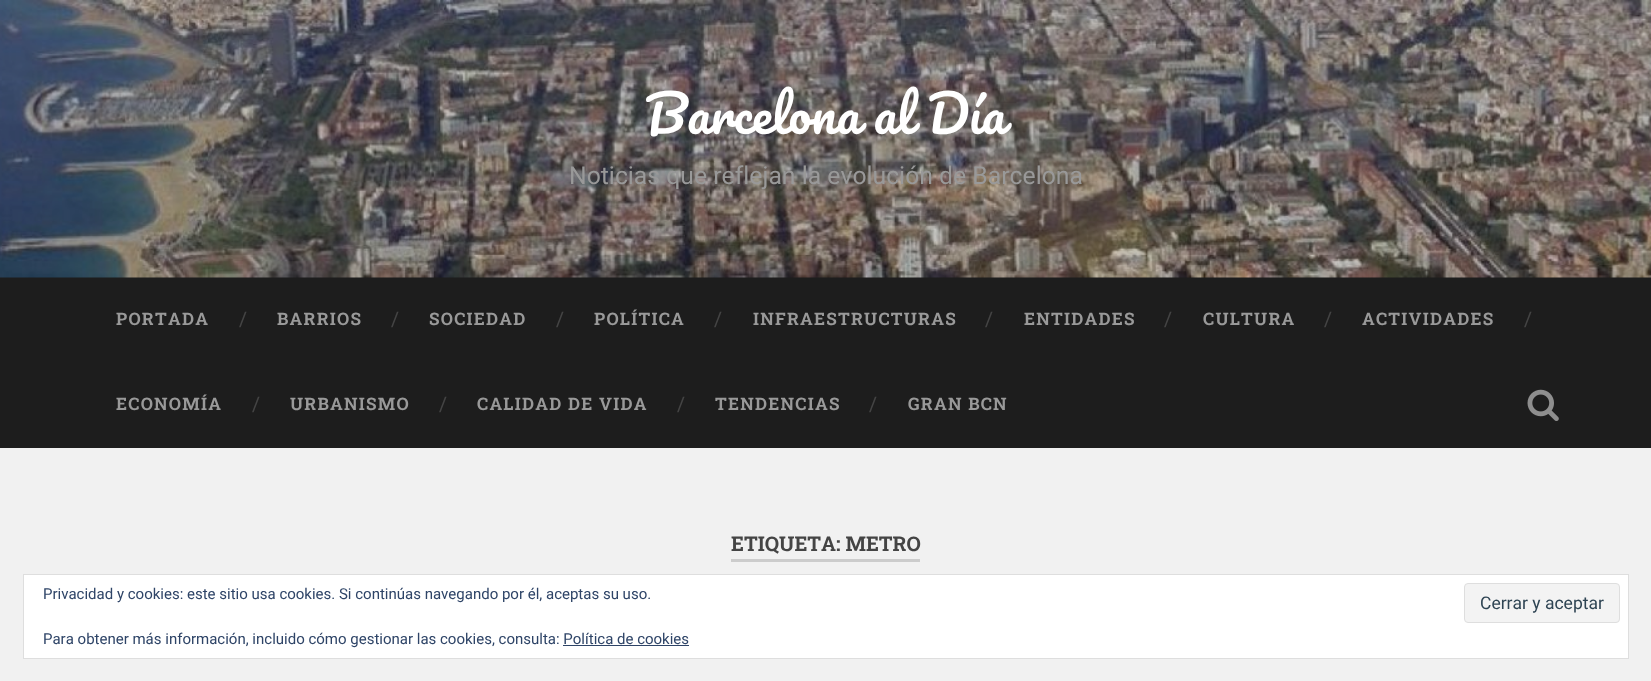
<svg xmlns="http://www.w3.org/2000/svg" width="1651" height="681">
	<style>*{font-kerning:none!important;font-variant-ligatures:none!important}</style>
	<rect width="100%" height="100%" fill="#F1F1F1" />
	<rect x="0" y="277" width="1651" height="171" fill="#1D1D1D" />
	<image x="0" y="0" width="1651" height="278" href="assets/img1.png" />
	<text x="645" y="134" font-family="Pacifico" font-size="50.5" fill="#FFFFFF">Barcelona al Día</text>
	<text x="569" y="184" font-family="Roboto" font-size="24.75" fill="#999999">Noticias que reflejan la evolución de Barcelona</text>
	<text x="116" y="325" font-family="Roboto Slab" font-size="17.25" font-weight="700" letter-spacing="1.25" fill="#999999">PORTADA</text>
	<text x="239" y="326" font-family="Roboto Slab" font-size="20" fill="#444444">/</text>
	<text x="277" y="325" font-family="Roboto Slab" font-size="17.25" font-weight="700" letter-spacing="1.25" fill="#999999">BARRIOS</text>
	<text x="391" y="326" font-family="Roboto Slab" font-size="20" fill="#444444">/</text>
	<text x="429" y="325" font-family="Roboto Slab" font-size="17.25" font-weight="700" letter-spacing="1.25" fill="#999999">SOCIEDAD</text>
	<text x="556" y="326" font-family="Roboto Slab" font-size="20" fill="#444444">/</text>
	<text x="594" y="325" font-family="Roboto Slab" font-size="17.25" font-weight="700" letter-spacing="1.25" fill="#999999">POLÍTICA</text>
	<text x="714" y="326" font-family="Roboto Slab" font-size="20" fill="#444444">/</text>
	<text x="753" y="325" font-family="Roboto Slab" font-size="17.25" font-weight="700" letter-spacing="1.25" fill="#999999">INFRAESTRUCTURAS</text>
	<text x="985" y="326" font-family="Roboto Slab" font-size="20" fill="#444444">/</text>
	<text x="1024" y="325" font-family="Roboto Slab" font-size="17.25" font-weight="700" letter-spacing="1.25" fill="#999999">ENTIDADES</text>
	<text x="1164" y="326" font-family="Roboto Slab" font-size="20" fill="#444444">/</text>
	<text x="1203" y="325" font-family="Roboto Slab" font-size="17.25" font-weight="700" letter-spacing="1.25" fill="#999999">CULTURA</text>
	<text x="1324" y="326" font-family="Roboto Slab" font-size="20" fill="#444444">/</text>
	<text x="1362" y="325" font-family="Roboto Slab" font-size="17.25" font-weight="700" letter-spacing="1.25" fill="#999999">ACTIVIDADES</text>
	<text x="1524" y="326" font-family="Roboto Slab" font-size="20" fill="#444444">/</text>
	<text x="116" y="410" font-family="Roboto Slab" font-size="17.25" font-weight="700" letter-spacing="1.25" fill="#999999">ECONOMÍA</text>
	<text x="252" y="411" font-family="Roboto Slab" font-size="20" fill="#444444">/</text>
	<text x="290" y="410" font-family="Roboto Slab" font-size="17.25" font-weight="700" letter-spacing="1.25" fill="#999999">URBANISMO</text>
	<text x="439" y="411" font-family="Roboto Slab" font-size="20" fill="#444444">/</text>
	<text x="477" y="410" font-family="Roboto Slab" font-size="17.25" font-weight="700" letter-spacing="1.25" fill="#999999">CALIDAD DE VIDA</text>
	<text x="677" y="411" font-family="Roboto Slab" font-size="20" fill="#444444">/</text>
	<text x="715" y="410" font-family="Roboto Slab" font-size="17.25" font-weight="700" letter-spacing="1.25" fill="#999999">TENDENCIAS</text>
	<text x="869" y="411" font-family="Roboto Slab" font-size="20" fill="#444444">/</text>
	<text x="908" y="410" font-family="Roboto Slab" font-size="17.25" font-weight="700" letter-spacing="1.25" fill="#999999">GRAN BCN</text>
	<image x="1527" y="389" width="32" height="32" href="assets/img2.png" />
	<rect x="731" y="559" width="189" height="3" fill="#CCCCCC" />
	<text x="731" y="551" font-family="Roboto Slab" font-size="20.25" font-weight="700" fill="#444444">ETIQUETA: METRO</text>
	<rect x="23.5" y="574.5" width="1605" height="84" fill="#FFFFFF" stroke="#DEDEDE" />
	<text x="43" y="599" font-family="Roboto" font-size="15" fill="#2E4467">Privacidad y cookies: este sitio usa cookies. Si continúas navegando por él, aceptas su uso.</text>
	<rect x="1464.5" y="583.5" width="155" height="39" rx="3.5" fill="#F3F3F3" stroke="#DEDEDE" />
	<text x="1480" y="609" font-family="Roboto" font-size="17.5" fill="#2E4453">Cerrar y aceptar</text>
	<text x="43" y="644" font-family="Roboto" font-size="15" fill="#2E4467">Para obtener más información, incluido cómo gestionar las cookies, consulta: Política de cookies</text>
	<rect x="563" y="645" width="126" height="1" fill="#2E4467" />
</svg>
